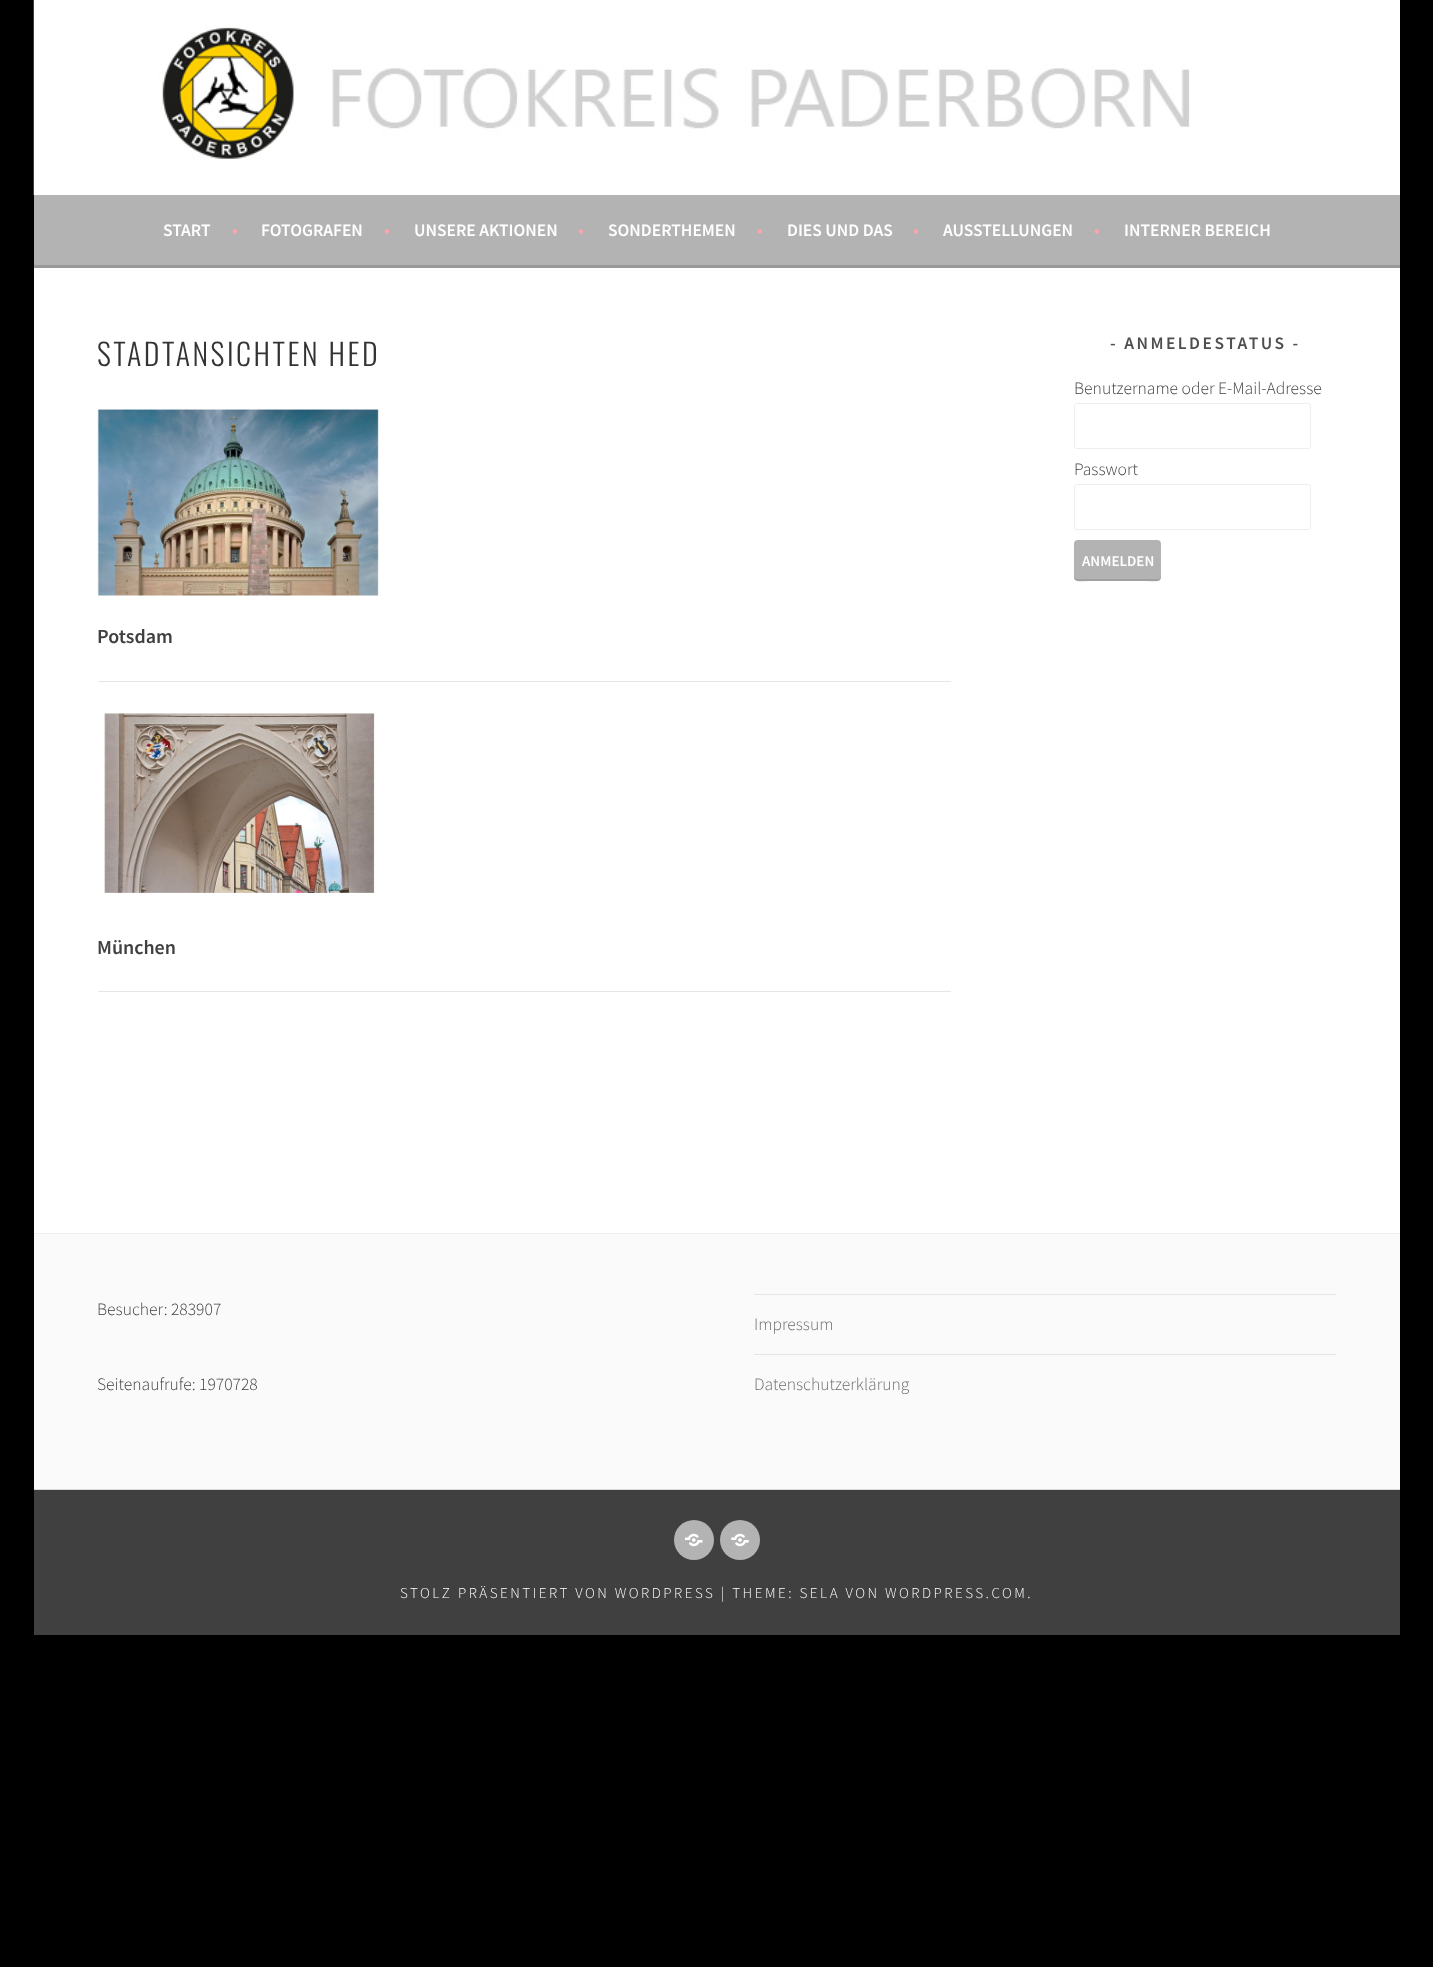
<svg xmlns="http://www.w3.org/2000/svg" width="1433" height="1967">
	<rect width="100%" height="100%" fill="#000000" />
	<rect x="1190" y="0" width="210" height="195" fill="#FFFFFF" />
	<image x="33" y="0" width="1157" height="195" href="assets/img1.png" />
	<rect x="34" y="195" width="1366" height="70" fill="#B3B3B3" />
	<rect x="34" y="265" width="1366" height="3" fill="#989898" />
	<text x="163" y="236" font-family="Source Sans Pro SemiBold" font-size="17.5" font-weight="600" fill="#FFFFFF">START</text>
	<text x="232" y="236" font-family="Source Sans Pro SemiBold" font-size="17.5" font-weight="600" fill="#FFA4AD">•</text>
	<text x="261" y="236" font-family="Source Sans Pro SemiBold" font-size="17.5" font-weight="600" fill="#FFFFFF">FOTOGRAFEN</text>
	<text x="384" y="236" font-family="Source Sans Pro SemiBold" font-size="17.5" font-weight="600" fill="#FFA4AD">•</text>
	<text x="414" y="236" font-family="Source Sans Pro SemiBold" font-size="17.5" font-weight="600" fill="#FFFFFF">UNSERE AKTIONEN</text>
	<text x="578" y="236" font-family="Source Sans Pro SemiBold" font-size="17.5" font-weight="600" fill="#FFA4AD">•</text>
	<text x="608" y="236" font-family="Source Sans Pro SemiBold" font-size="17.5" font-weight="600" fill="#FFFFFF">SONDERTHEMEN</text>
	<text x="757" y="236" font-family="Source Sans Pro SemiBold" font-size="17.5" font-weight="600" fill="#FFA4AD">•</text>
	<text x="787" y="236" font-family="Source Sans Pro SemiBold" font-size="17.5" font-weight="600" fill="#FFFFFF">DIES UND DAS</text>
	<text x="913" y="236" font-family="Source Sans Pro SemiBold" font-size="17.5" font-weight="600" fill="#FFA4AD">•</text>
	<text x="943" y="236" font-family="Source Sans Pro SemiBold" font-size="17.5" font-weight="600" fill="#FFFFFF">AUSSTELLUNGEN</text>
	<text x="1094" y="236" font-family="Source Sans Pro SemiBold" font-size="17.5" font-weight="600" fill="#FFA4AD">•</text>
	<text x="1124" y="236" font-family="Source Sans Pro SemiBold" font-size="17.5" font-weight="600" fill="#FFFFFF">INTERNER BEREICH</text>
	<rect x="34" y="268" width="1366" height="965" fill="#FFFFFF" />
	<text x="97" y="366" font-family="Oswald" font-size="30" font-weight="300" letter-spacing="2.5" fill="#333333">STADTANSICHTEN HED</text>
	<image x="97" y="409" width="282" height="187" href="assets/img2.png" />
	<text x="97" y="643" font-family="Source Sans Pro SemiBold" font-size="20" font-weight="600" fill="#404040">Potsdam</text>
	<rect x="98" y="681" width="853" height="1" fill="#E6E6E6" />
	<image x="104" y="713" width="271" height="180" href="assets/img3.png" />
	<text x="97" y="954" font-family="Source Sans Pro SemiBold" font-size="20" font-weight="600" fill="#404040">München</text>
	<rect x="98" y="991" width="853" height="1" fill="#E6E6E6" />
	<text x="1110" y="349" font-family="Source Sans Pro SemiBold" font-size="17.5" font-weight="600" letter-spacing="2.5" fill="#4F4F4F">- ANMELDESTATUS -</text>
	<text x="1074" y="394" font-family="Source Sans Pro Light" font-size="17.5" font-weight="300" fill="#404040">Benutzername oder E-Mail-Adresse</text>
	<rect x="1074.5" y="403.5" width="236" height="45" rx="2" fill="none" stroke="#EEEEEE" />
	<text x="1074" y="475" font-family="Source Sans Pro Light" font-size="17.5" font-weight="300" fill="#404040">Passwort</text>
	<rect x="1074.5" y="484.5" width="236" height="45" rx="2" fill="none" stroke="#EEEEEE" />
	<rect x="1074" y="540" width="87" height="41" rx="4" fill="#B3B3B3" />
	<path d="M1074 575C1074 585 1083 581 1091 581H1144C1152 581 1161 585 1161 575C1161 577 1160 579 1158 579H1078C1075 579 1074 577 1074 575Z" fill="#000000" fill-opacity="0.1" />
	<text x="1082" y="566" font-family="Source Sans Pro SemiBold" font-size="15" font-weight="600" fill="#FFFFFF">ANMELDEN</text>
	<rect x="34" y="1234" width="1366" height="255" fill="#FAFAFA" />
	<rect x="34" y="1233" width="1366" height="1" fill="#EEEEEE" />
	<g font-family="Source Sans Pro Light" font-size="17.5" font-weight="300" fill="#404040">
		<text x="97" y="1315">Besucher: 283907</text>
		<text x="97" y="1390">Seitenaufrufe: 1970728</text>
	</g>
	<rect x="754" y="1294" width="582" height="1" fill="#E5E5E5" />
	<text x="754" y="1330" font-family="Source Sans Pro Light" font-size="17.5" font-weight="300" fill="#6D6D6D">Impressum</text>
	<rect x="754" y="1354" width="582" height="1" fill="#E5E5E5" />
	<text x="754" y="1390" font-family="Source Sans Pro Light" font-size="17.5" font-weight="300" fill="#6D6D6D">Datenschutzerklärung</text>
	<rect x="34" y="1490" width="1366" height="145" fill="#404040" />
	<rect x="34" y="1489" width="1366" height="1" fill="#D9D9D9" />
	<circle cx="694" cy="1540" r="20" fill="#B3B3B3" />
	<image x="685" y="1533" width="18" height="14" href="assets/img4.png" />
	<circle cx="740" cy="1540" r="20" fill="#B3B3B3" />
	<image x="731" y="1533" width="18" height="14" href="assets/img5.png" />
	<text x="400" y="1598" font-family="Source Sans Pro Light" font-size="15" font-weight="300" letter-spacing="2.5" fill="#FFFFFF">STOLZ PRÄSENTIERT VON WORDPRESS | THEME: SELA VON WORDPRESS.COM.</text>
</svg>
